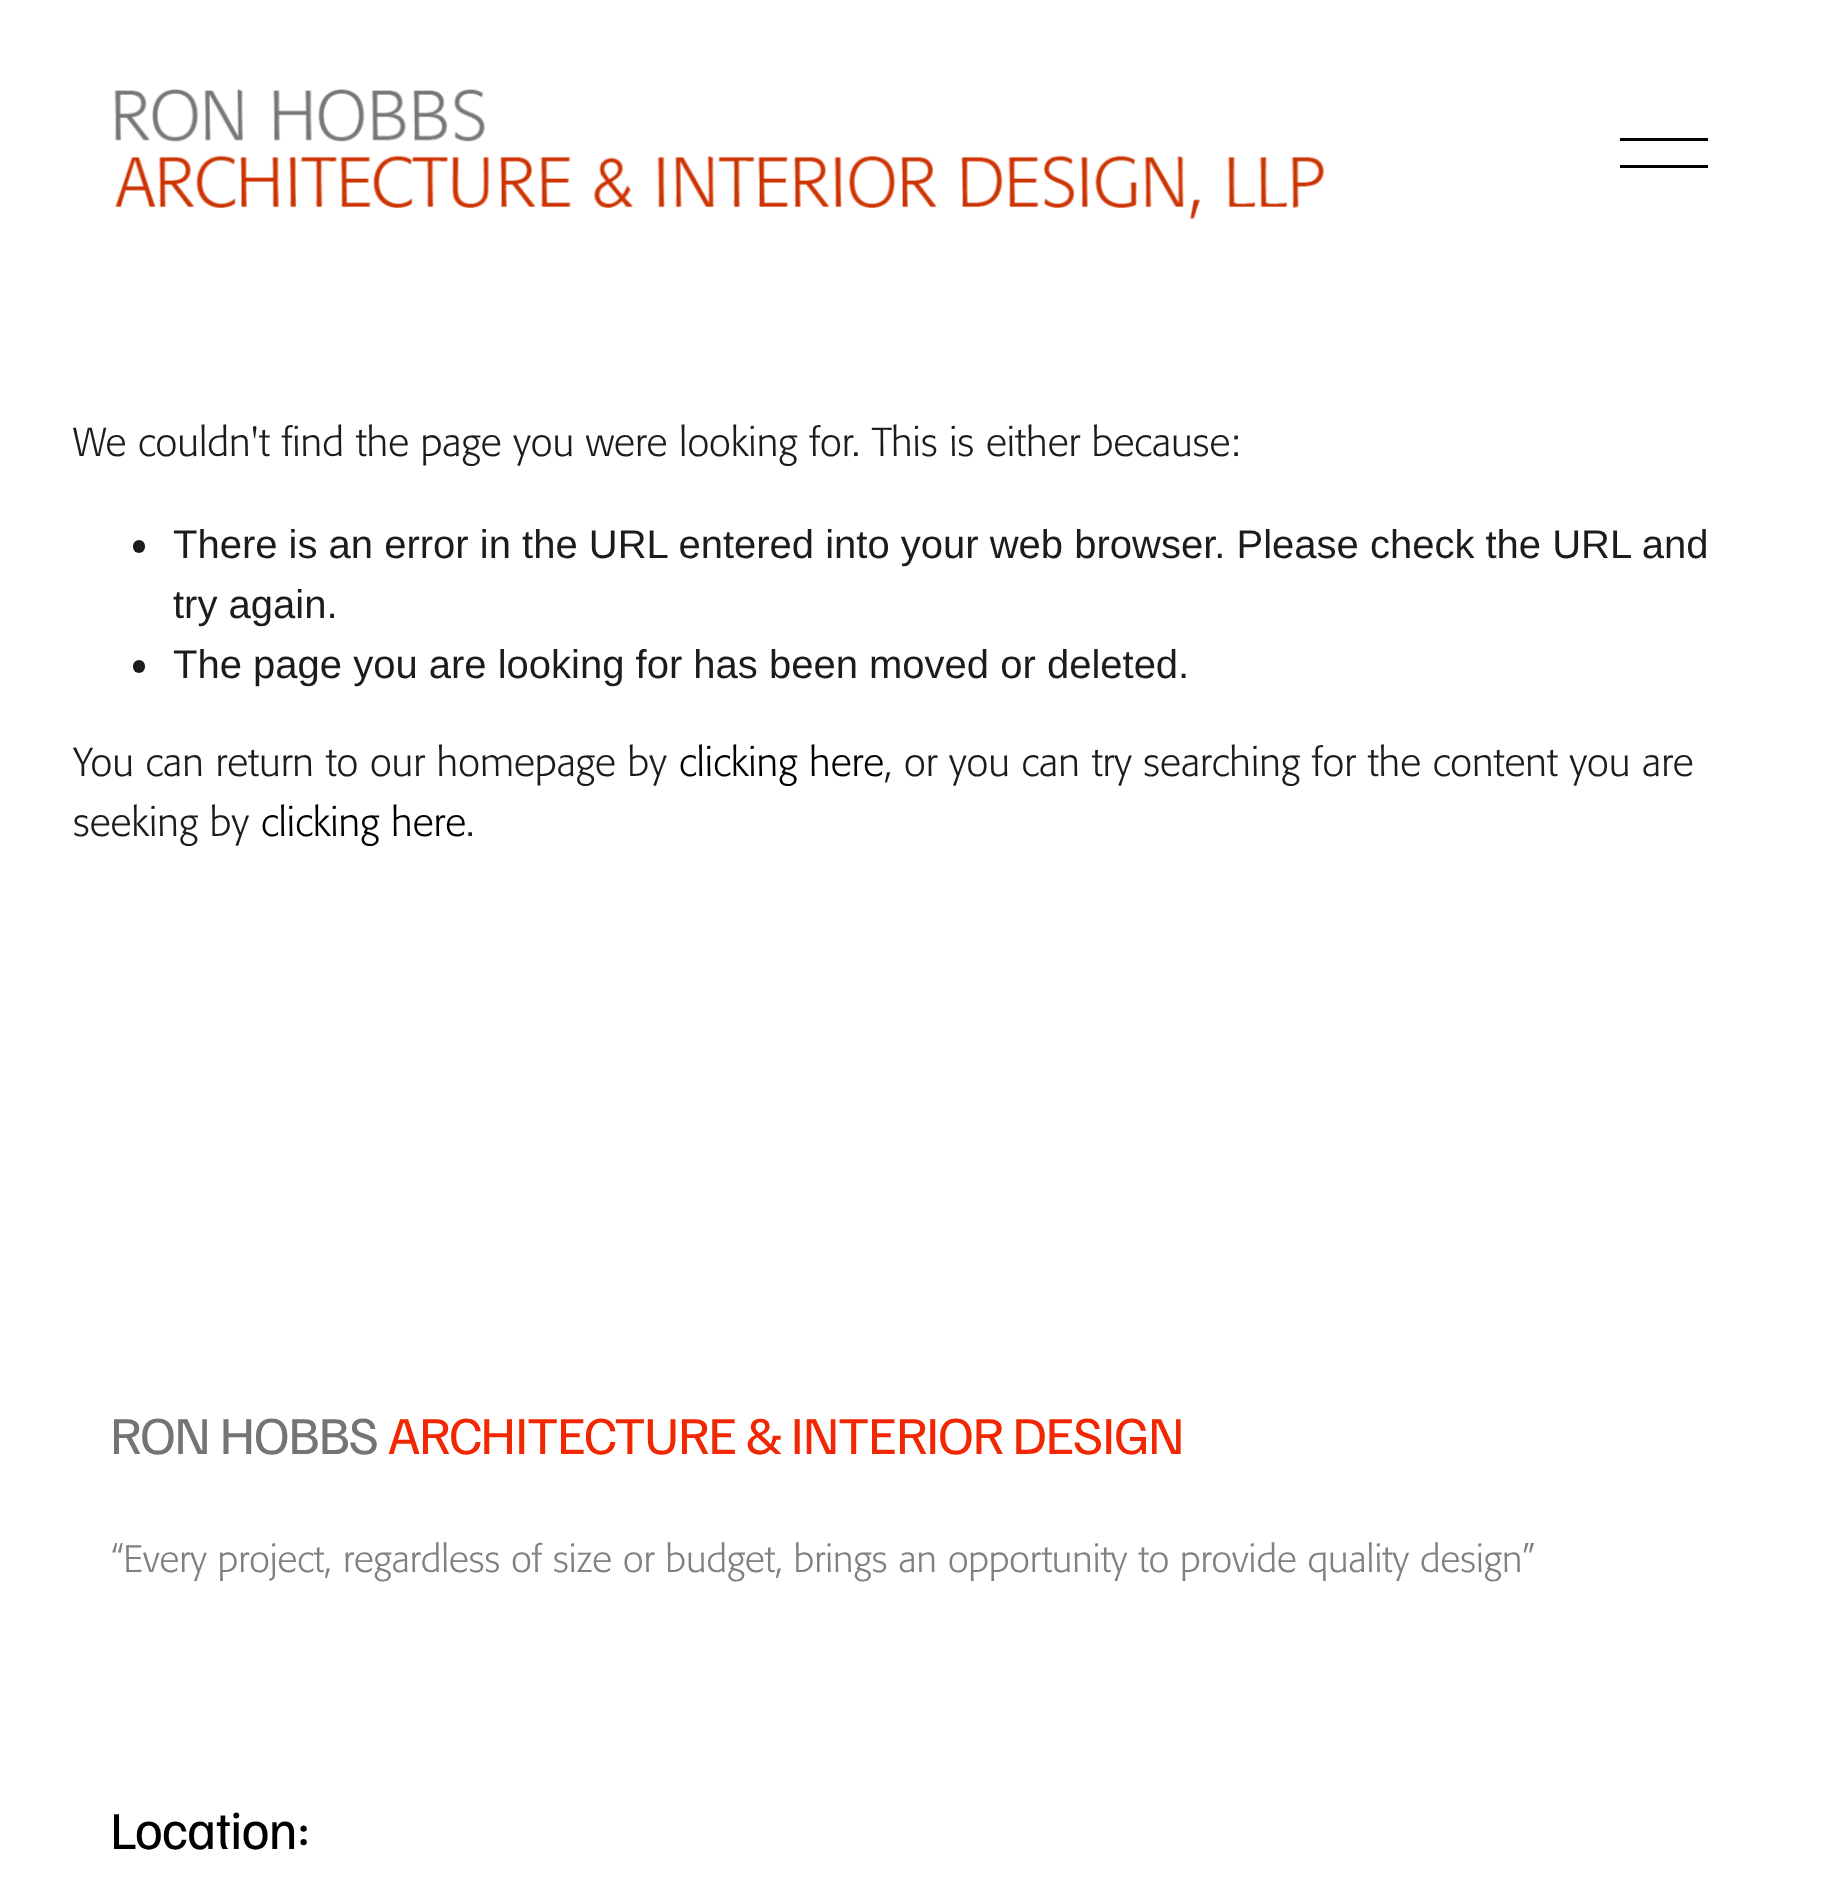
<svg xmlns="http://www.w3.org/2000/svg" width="1831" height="1890">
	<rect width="100%" height="100%" fill="#FFFFFF" />
	<image x="114" y="89" width="1211" height="130" href="assets/img1.png" />
	<rect x="1620" y="138" width="88" height="3" fill="#000000" />
	<rect x="1620" y="165" width="88" height="3" fill="#000000" />
	<text x="73" y="456" font-family="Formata" font-size="40" font-weight="300" fill="#1C1C1C">We couldn't find the page you were looking for. This is either because:</text>
	<rect x="133" y="540" width="12" height="13" rx="6" fill="#1C1C1C" />
	<g font-family="Arimo" font-size="40" fill="#1C1C1C">
		<text x="173" y="558">There is an error in the URL entered into your web browser. Please check the URL and</text>
		<text x="173" y="618">try again.</text>
	</g>
	<rect x="133" y="660" width="12" height="13" rx="6" fill="#1C1C1C" />
	<text x="173" y="678" font-family="Arimo" font-size="40" fill="#1C1C1C">The page you are looking for has been moved or deleted.</text>
	<text x="73" y="776" font-family="Formata" font-size="40" font-weight="300" fill="#1C1C1C">You can return to our homepage by</text>
	<text x="679" y="776" font-family="Formata" font-size="40" font-weight="300" fill="#000000">clicking here</text>
	<g font-family="Formata" font-size="40" font-weight="300" fill="#1C1C1C">
		<text x="884" y="776">, or you can try searching for the content you are</text>
		<text x="73" y="836">seeking by</text>
	</g>
	<text x="261" y="836" font-family="Formata" font-size="40" font-weight="300" fill="#000000">clicking here</text>
	<text x="466" y="836" font-family="Formata" font-size="40" font-weight="300" fill="#1C1C1C">.</text>
	<text x="110" y="1454" font-family="Familjen Grotesk" font-size="53.6" letter-spacing="-1.1" fill="#747474">RON HOBBS</text>
	<text x="388" y="1454" font-family="Familjen Grotesk" font-size="53.6" letter-spacing="-1.1" fill="#F02702">ARCHITECTURE &amp; INTERIOR DESIGN</text>
	<text x="110" y="1572" font-family="Formata" font-size="37.75" font-weight="300" fill="#808080">“Every project, regardless of size or budget, brings an opportunity to provide quality design”</text>
	<text x="110" y="1849" font-family="Familjen Grotesk" font-size="53.6" letter-spacing="-1.1" fill="#000000">Location:</text>
</svg>
